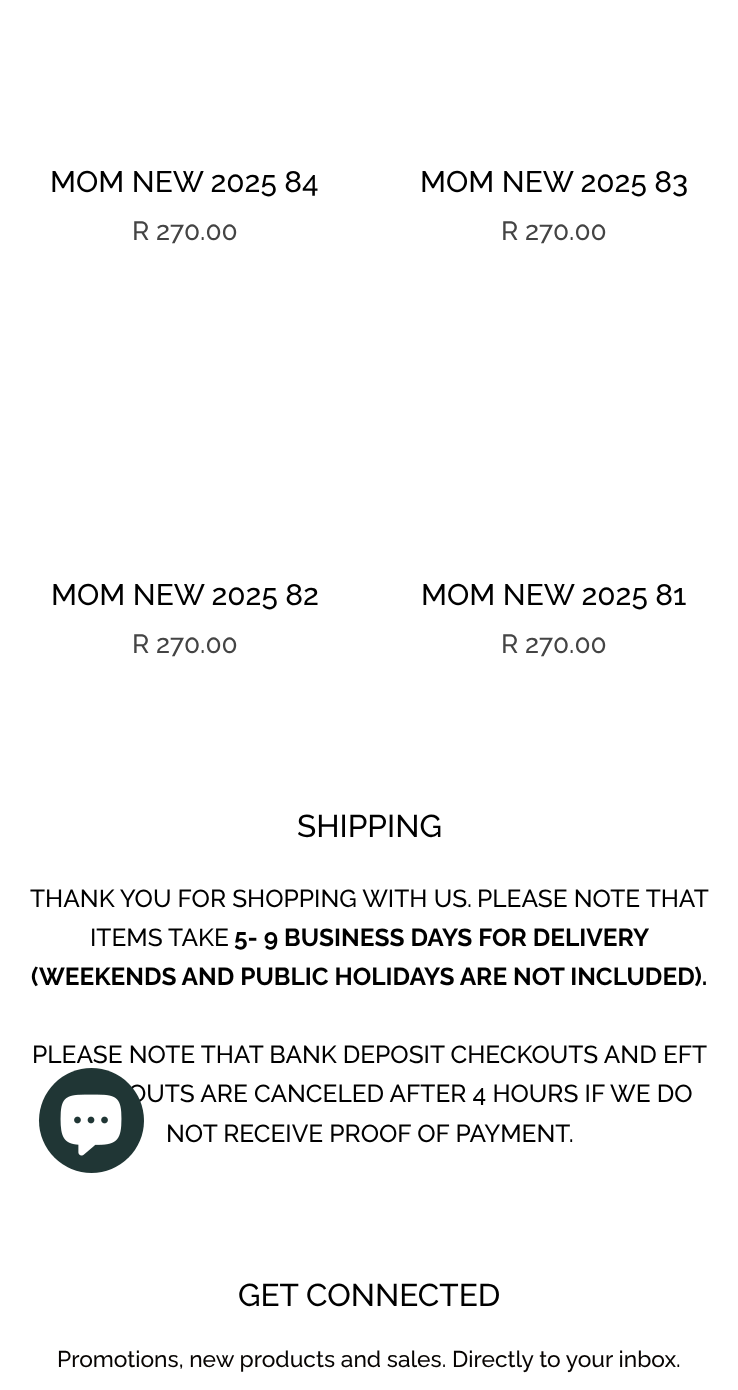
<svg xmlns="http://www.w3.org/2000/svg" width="738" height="1390">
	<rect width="100%" height="100%" fill="#FFFFFF" />
	<text x="50" y="192" font-family="Raleway" font-size="29.75" font-weight="500" fill="#000000">MOM NEW 2025 84</text>
	<text x="132" y="240" font-family="Raleway" font-size="26.25" font-weight="500" fill="#444444">R 270.00</text>
	<text x="420" y="192" font-family="Raleway" font-size="29.75" font-weight="500" fill="#000000">MOM NEW 2025 83</text>
	<text x="501" y="240" font-family="Raleway" font-size="26.25" font-weight="500" fill="#444444">R 270.00</text>
	<text x="51" y="605" font-family="Raleway" font-size="29.75" font-weight="500" fill="#000000">MOM NEW 2025 82</text>
	<text x="132" y="653" font-family="Raleway" font-size="26.25" font-weight="500" fill="#444444">R 270.00</text>
	<text x="421" y="605" font-family="Raleway" font-size="29.75" font-weight="500" fill="#000000">MOM NEW 2025 81</text>
	<text x="501" y="653" font-family="Raleway" font-size="26.25" font-weight="500" fill="#444444">R 270.00</text>
	<text x="297" y="837" font-family="Raleway" font-size="31.5" font-weight="500" fill="#000000">SHIPPING</text>
	<g font-family="Raleway" font-size="24.5" font-weight="500" fill="#000000">
		<text x="30" y="907">THANK YOU FOR SHOPPING WITH US.</text>
		<text x="477" y="907">PLEASE NOTE THAT</text>
		<text x="90" y="946">ITEMS TAKE</text>
	</g>
	<g font-family="Raleway" font-size="24.5" font-weight="700" fill="#000000">
		<text x="234" y="946">5- 9 BUSINESS DAYS FOR DELIVERY</text>
		<text x="31" y="985">(WEEKENDS AND PUBLIC HOLIDAYS ARE NOT INCLUDED).</text>
	</g>
	<g font-family="Raleway" font-size="24.5" font-weight="500" fill="#000000">
		<text x="32" y="1063">PLEASE NOTE THAT BANK DEPOSIT CHECKOUTS AND EFT</text>
		<text x="128" y="1102">OUTS ARE CANCELED AFTER 4 HOURS IF WE DO</text>
		<text x="166" y="1142">NOT RECEIVE PROOF OF PAYMENT.</text>
	</g>
	<text x="238" y="1306" font-family="Raleway" font-size="31.5" font-weight="500" fill="#000000">GET CONNECTED</text>
	<text x="57" y="1367" font-family="Raleway" font-size="22.75" font-weight="500" fill="#070402">Promotions, new products and sales. Directly to your inbox.</text>
	<circle cx="91.5" cy="1120.5" r="52.5" fill="#203635" />
	<image x="60" y="1094" width="62" height="62" href="assets/img1.png" />
</svg>
